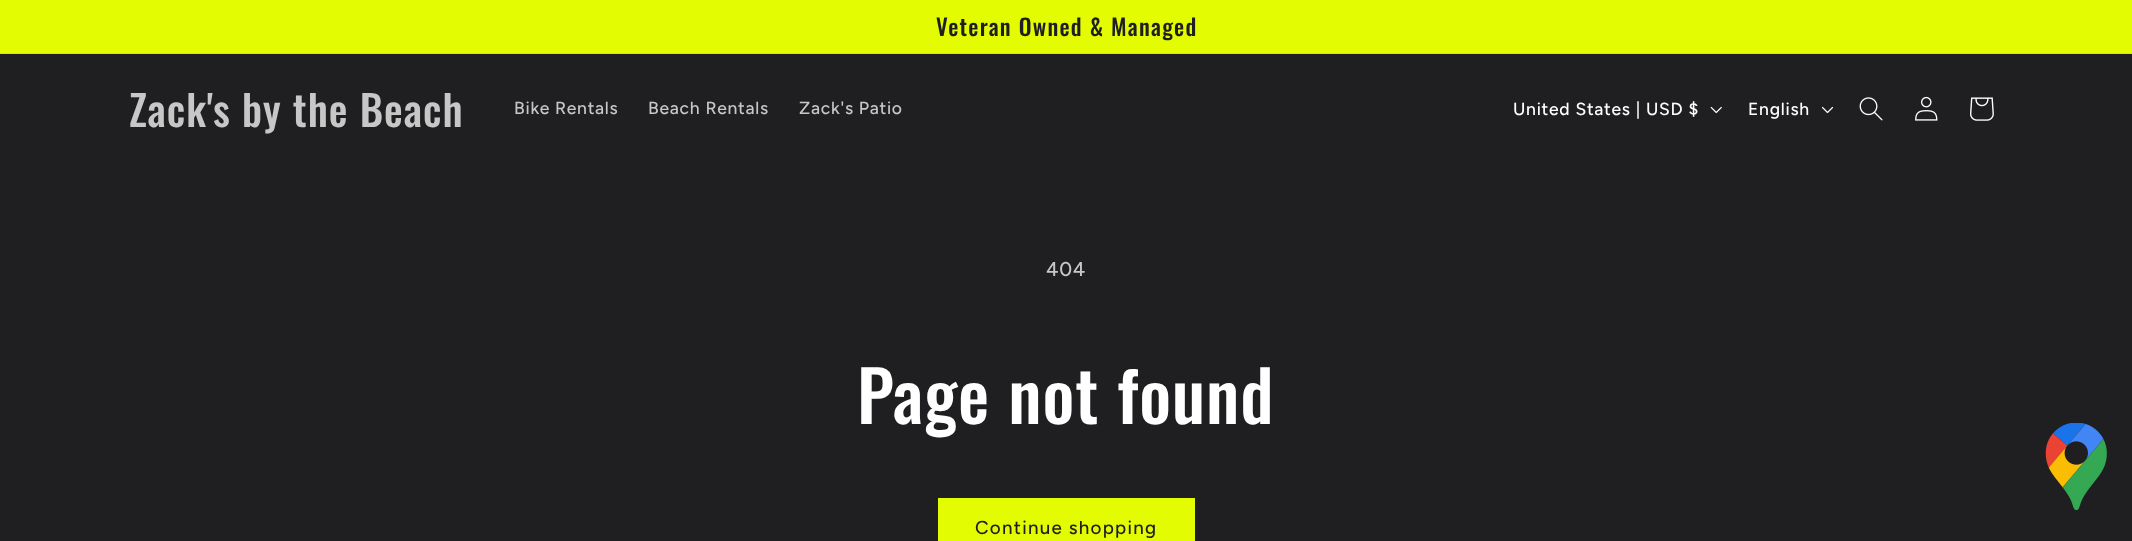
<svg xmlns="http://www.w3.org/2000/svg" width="2132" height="541">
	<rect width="100%" height="100%" fill="#1F1F21" />
	<rect x="0" y="0" width="2132" height="53" fill="#E3FC02" />
	<rect x="0" y="53" width="2132" height="1" fill="#D3EA04" />
	<text x="936" y="36" font-family="Oswald" font-size="22.75" font-weight="500" letter-spacing="1.25" fill="#1F1F21">Veteran Owned &amp; Managed</text>
	<text x="129" y="127" font-family="Oswald" font-size="42" font-weight="500" letter-spacing="1" fill="#C7C7C8">Zack's by the Beach</text>
	<g font-family="Figtree" font-size="17.5" font-weight="500" letter-spacing="0.75" fill="#C7C7C8">
		<text x="514" y="114">Bike Rentals</text>
		<text x="648" y="114">Beach Rentals</text>
		<text x="799" y="114">Zack's Patio</text>
	</g>
	<text x="1513" y="115" font-family="Figtree" font-size="17.5" font-weight="500" letter-spacing="0.75" fill="#FFFFFF">United States | USD $</text>
	<image x="1710" y="106" width="12" height="8" href="assets/img1.png" />
	<text x="1748" y="115" font-family="Figtree" font-size="17.5" font-weight="500" letter-spacing="0.75" fill="#FFFFFF">English</text>
	<image x="1821" y="106" width="13" height="8" href="assets/img2.png" />
	<image x="1859" y="97" width="24" height="24" href="assets/img3.png" />
	<image x="1915" y="96" width="23" height="25" href="assets/img4.png" />
	<image x="1970" y="97" width="24" height="24" href="assets/img5.png" />
	<text x="1046" y="276" font-family="Figtree" font-size="20" font-weight="500" letter-spacing="0.75" fill="#C7C7C8">404</text>
	<text x="857" y="424" font-family="Oswald" font-size="70" font-weight="500" letter-spacing="1" fill="#FFFFFF">Page not found</text>
	<rect x="938" y="498" width="257" height="43" fill="#E3FC02" />
	<text x="975" y="534" font-family="Figtree" font-size="18.75" font-weight="500" letter-spacing="1.25" fill="#1F1F21">Continue shopping</text>
	<image x="2045" y="423" width="62" height="87" href="assets/img6.png" />
</svg>
